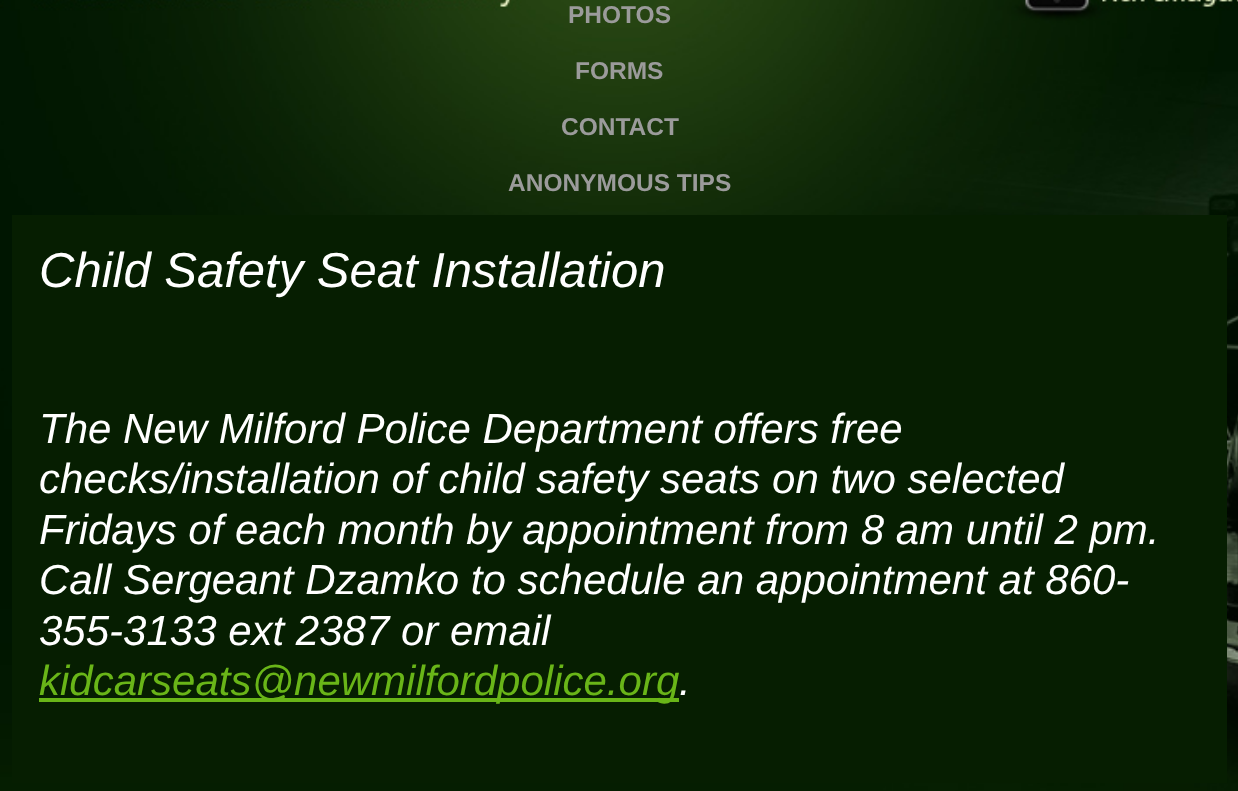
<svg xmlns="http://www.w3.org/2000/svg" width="1238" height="791">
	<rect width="100%" height="100%" fill="#FFFFFF" />
	<image x="0" y="0" width="1238" height="791" href="assets/img1.png" />
	<g font-family="Liberation Sans" font-size="24.5" font-weight="700" fill="#9B9B9B">
		<text x="568" y="23">PHOTOS</text>
		<text x="575" y="79">FORMS</text>
		<text x="561" y="135">CONTACT</text>
		<text x="508" y="191">ANONYMOUS TIPS</text>
	</g>
	<rect x="12" y="215" width="1215" height="568" fill="#061E01" />
	<text x="39" y="287" font-family="Liberation Sans" font-size="49" font-style="italic" fill="#FFFFFF">Child Safety Seat Installation</text>
	<g font-family="Liberation Sans" font-size="42" font-style="italic" fill="#FFFFFF">
		<text x="39" y="443">The New Milford Police Department offers free</text>
		<text x="39" y="493">checks/installation of child safety seats on two selected</text>
		<text x="39" y="544">Fridays of each month by appointment from 8 am until 2 pm.</text>
		<text x="39" y="594">Call Sergeant Dzamko to schedule an appointment at 860-</text>
		<text x="39" y="645">355-3133 ext 2387 or email</text>
	</g>
	<rect x="39" y="698" width="640" height="4" fill="#69B518" />
	<text x="39" y="695" font-family="Liberation Sans" font-size="42" font-style="italic" fill="#69B518">kidcarseats@newmilfordpolice.org</text>
	<text x="679" y="695" font-family="Liberation Sans" font-size="42" font-style="italic" fill="#FFFFFF">.</text>
</svg>
